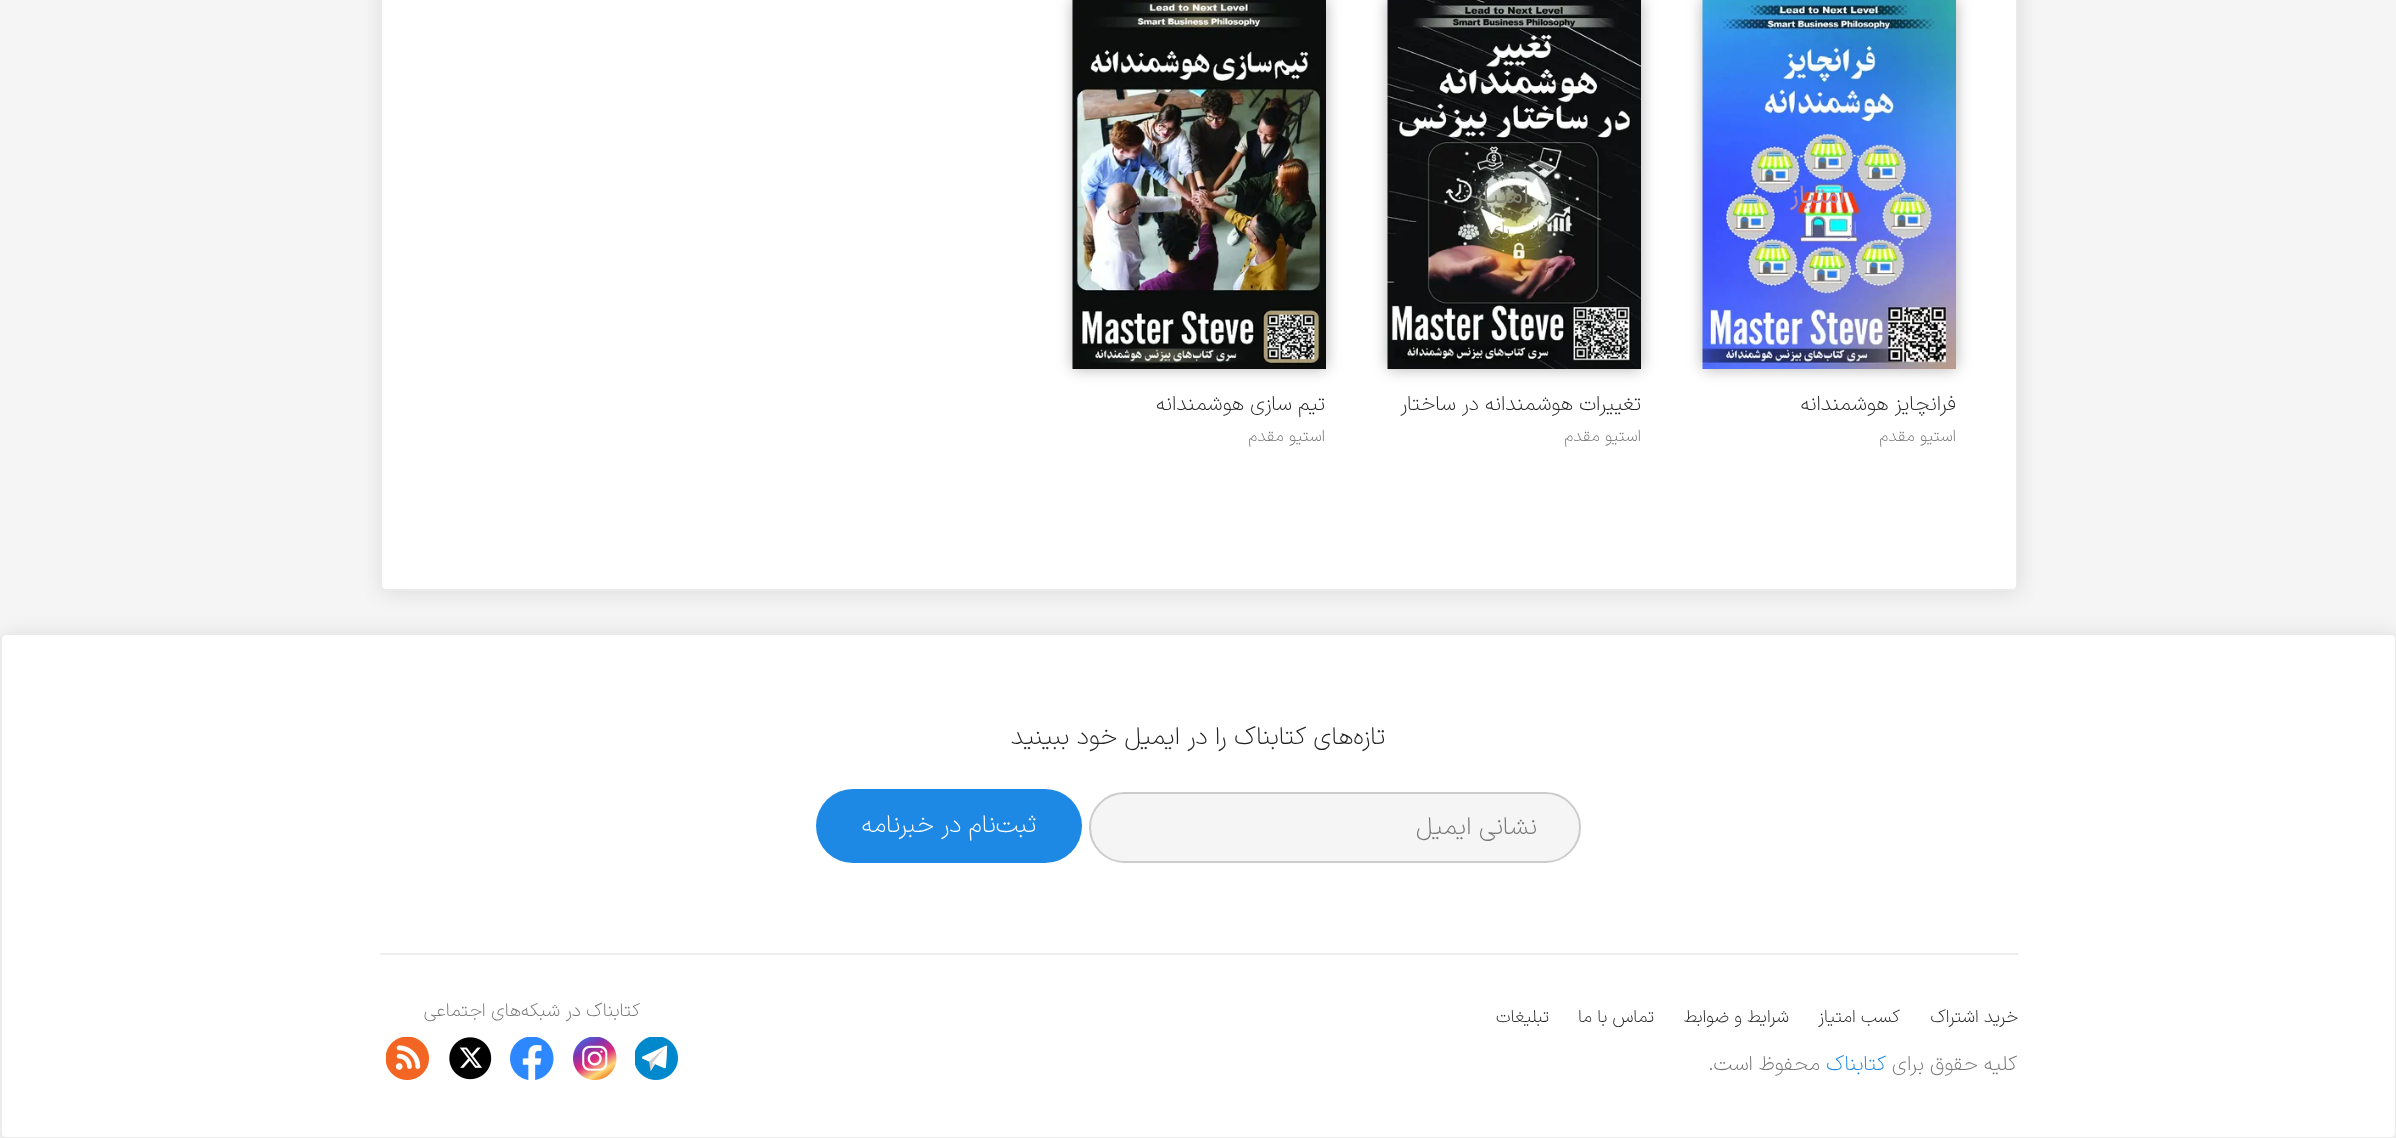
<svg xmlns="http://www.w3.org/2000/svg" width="2396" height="1138">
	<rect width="100%" height="100%" fill="#F5F5F5" />
	<rect x="381" y="-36" width="1638" height="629" rx="6" fill="#000000" fill-opacity="0.1" filter="blur(10px)" />
	<rect x="381" y="-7" width="1636" height="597" rx="5" fill="#FFFFFF" stroke="#EBEBEB" stroke-width="2" />
	<rect x="1703" y="-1" width="253" height="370" fill="#000000" fill-opacity="0.3" filter="blur(7.5px)" />
	<image x="1702" y="0" width="254" height="369" href="assets/img1.png" />
	<text x="1845" y="203" font-family="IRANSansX" font-size="25.25" direction="rtl" fill="#B18BAB">امتیاز</text>
	<text x="1857" y="234" font-family="IRANSansX" font-size="18.9" font-weight="200" direction="rtl" fill="#9198E1">از</text>
	<text x="1956" y="410" font-family="IRANSansX" font-size="21" font-weight="200" direction="rtl" fill="#212121">فرانچایز هوشمندانه</text>
	<text x="1956" y="441" font-family="IRANSansX" font-size="17" font-weight="200" direction="rtl" fill="#757575">استیو مقدم</text>
	<rect x="1388" y="-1" width="253" height="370" fill="#000000" fill-opacity="0.3" filter="blur(7.5px)" />
	<image x="1387" y="0" width="254" height="369" href="assets/img2.png" />
	<text x="1529" y="203" font-family="IRANSansX" font-size="25.25" direction="rtl" fill="#848677">امتیاز</text>
	<text x="1540" y="234" font-family="IRANSansX" font-size="18.9" font-weight="200" direction="rtl" fill="#9D9D78">از</text>
	<text x="1510" y="234" font-family="IRANSansX" font-size="18.9" font-weight="200" direction="rtl" fill="#A8A788">رای</text>
	<text x="1641" y="410" font-family="IRANSansX" font-size="21" font-weight="200" direction="rtl" fill="#212121">تغییرات هوشمندانه در ساختار</text>
	<text x="1641" y="441" font-family="IRANSansX" font-size="17" font-weight="200" direction="rtl" fill="#757575">استیو مقدم</text>
	<rect x="1073" y="-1" width="253" height="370" fill="#000000" fill-opacity="0.3" filter="blur(7.5px)" />
	<image x="1072" y="0" width="254" height="369" href="assets/img3.png" />
	<text x="1222" y="203" font-family="IRANSansX" font-size="25.25" fill="#7A8174">5</text>
	<text x="1200" y="234" font-family="IRANSansX" font-size="18.9" font-weight="200" fill="#5F363E">2</text>
	<text x="1325" y="410" font-family="IRANSansX" font-size="21" font-weight="200" direction="rtl" fill="#212121">تیم سازی هوشمندانه</text>
	<text x="1325" y="441" font-family="IRANSansX" font-size="17" font-weight="200" direction="rtl" fill="#757575">استیو مقدم</text>
	<rect x="2" y="635" width="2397" height="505" rx="6" fill="#000000" fill-opacity="0.1" filter="blur(10px)" />
	<rect x="1" y="634" width="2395" height="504" rx="5" fill="#FFFFFF" stroke="#EBEBEB" stroke-width="2" />
	<rect x="380" y="953" width="1638" height="2" fill="#EDEDED" />
	<text x="1385" y="744" font-family="IRANSansX" font-size="25.25" font-weight="200" direction="rtl" fill="#212121">تازه‌های کتابناک را در ایمیل خود ببینید</text>
	<rect x="1090" y="793" width="490" height="69" rx="34.5" fill="#F5F5F5" stroke="#CCCCCC" stroke-width="2" />
	<text x="1537" y="834" font-family="IRANSansX" font-size="25.25" font-weight="200" direction="rtl" fill="#757575">نشانی ایمیل</text>
	<rect x="816" y="789" width="266" height="74" rx="37" fill="#1E88E5" />
	<text x="1036" y="832" font-family="IRANSansX" font-size="25.25" font-weight="200" direction="rtl" fill="#FFFFFF">ثبت‌نام در خبرنامه</text>
	<g font-family="IRANSansX" font-size="18" font-weight="200" direction="rtl" fill="#212121">
		<text x="2018" y="1022">خرید اشتراک</text>
		<text x="1900" y="1022">کسب امتیاز</text>
		<text x="1789" y="1022">شرایط و ضوابط</text>
		<text x="1654" y="1022">تماس با ما</text>
		<text x="1549" y="1022">تبلیغات</text>
	</g>
	<text x="2017" y="1070" font-family="IRANSansX" font-size="21" font-weight="200" direction="rtl" fill="#757575">کلیه حقوق برای</text>
	<text x="1886" y="1070" font-family="IRANSansX" font-size="21" font-weight="200" direction="rtl" fill="#1E88E5">کتابناک</text>
	<text x="1820" y="1070" font-family="IRANSansX" font-size="21" font-weight="200" direction="rtl" fill="#757575">محفوظ است.</text>
	<text x="640" y="1016" font-family="IRANSansX" font-size="18.9" font-weight="200" direction="rtl" fill="#757575">کتابناک در شبکه‌های اجتماعی</text>
	<image x="635" y="1037" width="43" height="43" href="assets/img4.png" />
	<image x="573" y="1037" width="44" height="43" href="assets/img5.png" />
	<image x="510" y="1037" width="44" height="43" href="assets/img6.png" />
	<image x="449" y="1037" width="43" height="43" href="assets/img7.png" />
	<image x="386" y="1037" width="43" height="43" href="assets/img8.png" />
</svg>
